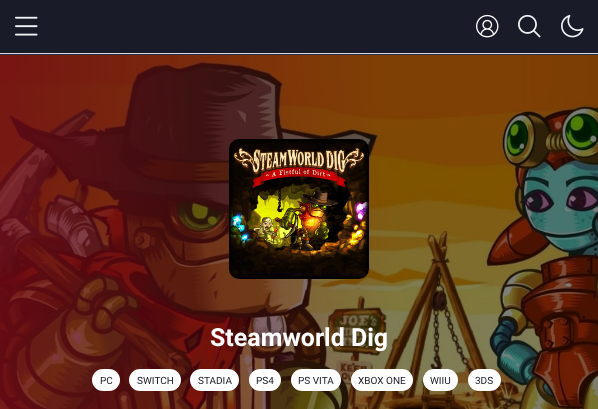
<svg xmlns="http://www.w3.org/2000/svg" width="598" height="409">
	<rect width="100%" height="100%" fill="#2B2D42" />
	<rect x="0" y="0" width="598" height="53" fill="#1A1B28" />
	<rect x="0" y="53" width="598" height="1" fill="#D6DAE2" />
	<image x="15" y="16" width="23" height="20" href="assets/img1.png" />
	<image x="476" y="14" width="23" height="24" href="assets/img2.png" />
	<image x="518" y="14" width="23" height="24" href="assets/img3.png" />
	<image x="561" y="14" width="23" height="24" href="assets/img4.png" />
	<image x="0" y="55" width="598" height="354" href="assets/img5.png" />
	<image x="229" y="139" width="140" height="140" href="assets/img6.png" />
	<text x="210" y="346" font-family="Roboto" font-size="25" font-weight="700" fill="#FFFFFF">Steamworld Dig</text>
	<rect x="92" y="369" width="28" height="22" rx="11" fill="#FFFFFF" />
	<text x="100" y="384" font-family="Roboto" font-size="10" fill="#1A1B28">PC</text>
	<rect x="129" y="369" width="52" height="22" rx="11" fill="#FFFFFF" />
	<text x="137" y="384" font-family="Roboto" font-size="10" fill="#1A1B28">SWITCH</text>
	<rect x="190" y="369" width="49" height="22" rx="11" fill="#FFFFFF" />
	<text x="198" y="384" font-family="Roboto" font-size="10" fill="#1A1B28">STADIA</text>
	<rect x="249" y="369" width="32" height="22" rx="11" fill="#FFFFFF" />
	<text x="256" y="384" font-family="Roboto" font-size="10" fill="#1A1B28">PS4</text>
	<rect x="291" y="369" width="50" height="22" rx="11" fill="#FFFFFF" />
	<text x="298" y="384" font-family="Roboto" font-size="10" fill="#1A1B28">PS VITA</text>
	<rect x="351" y="369" width="62" height="22" rx="11" fill="#FFFFFF" />
	<text x="358" y="384" font-family="Roboto" font-size="10" fill="#1A1B28">XBOX ONE</text>
	<rect x="423" y="369" width="35" height="22" rx="11" fill="#FFFFFF" />
	<text x="430" y="384" font-family="Roboto" font-size="10" fill="#1A1B28">WIIU</text>
	<rect x="468" y="369" width="33" height="22" rx="11" fill="#FFFFFF" />
	<text x="475" y="384" font-family="Roboto" font-size="10" fill="#1A1B28">3DS</text>
</svg>
